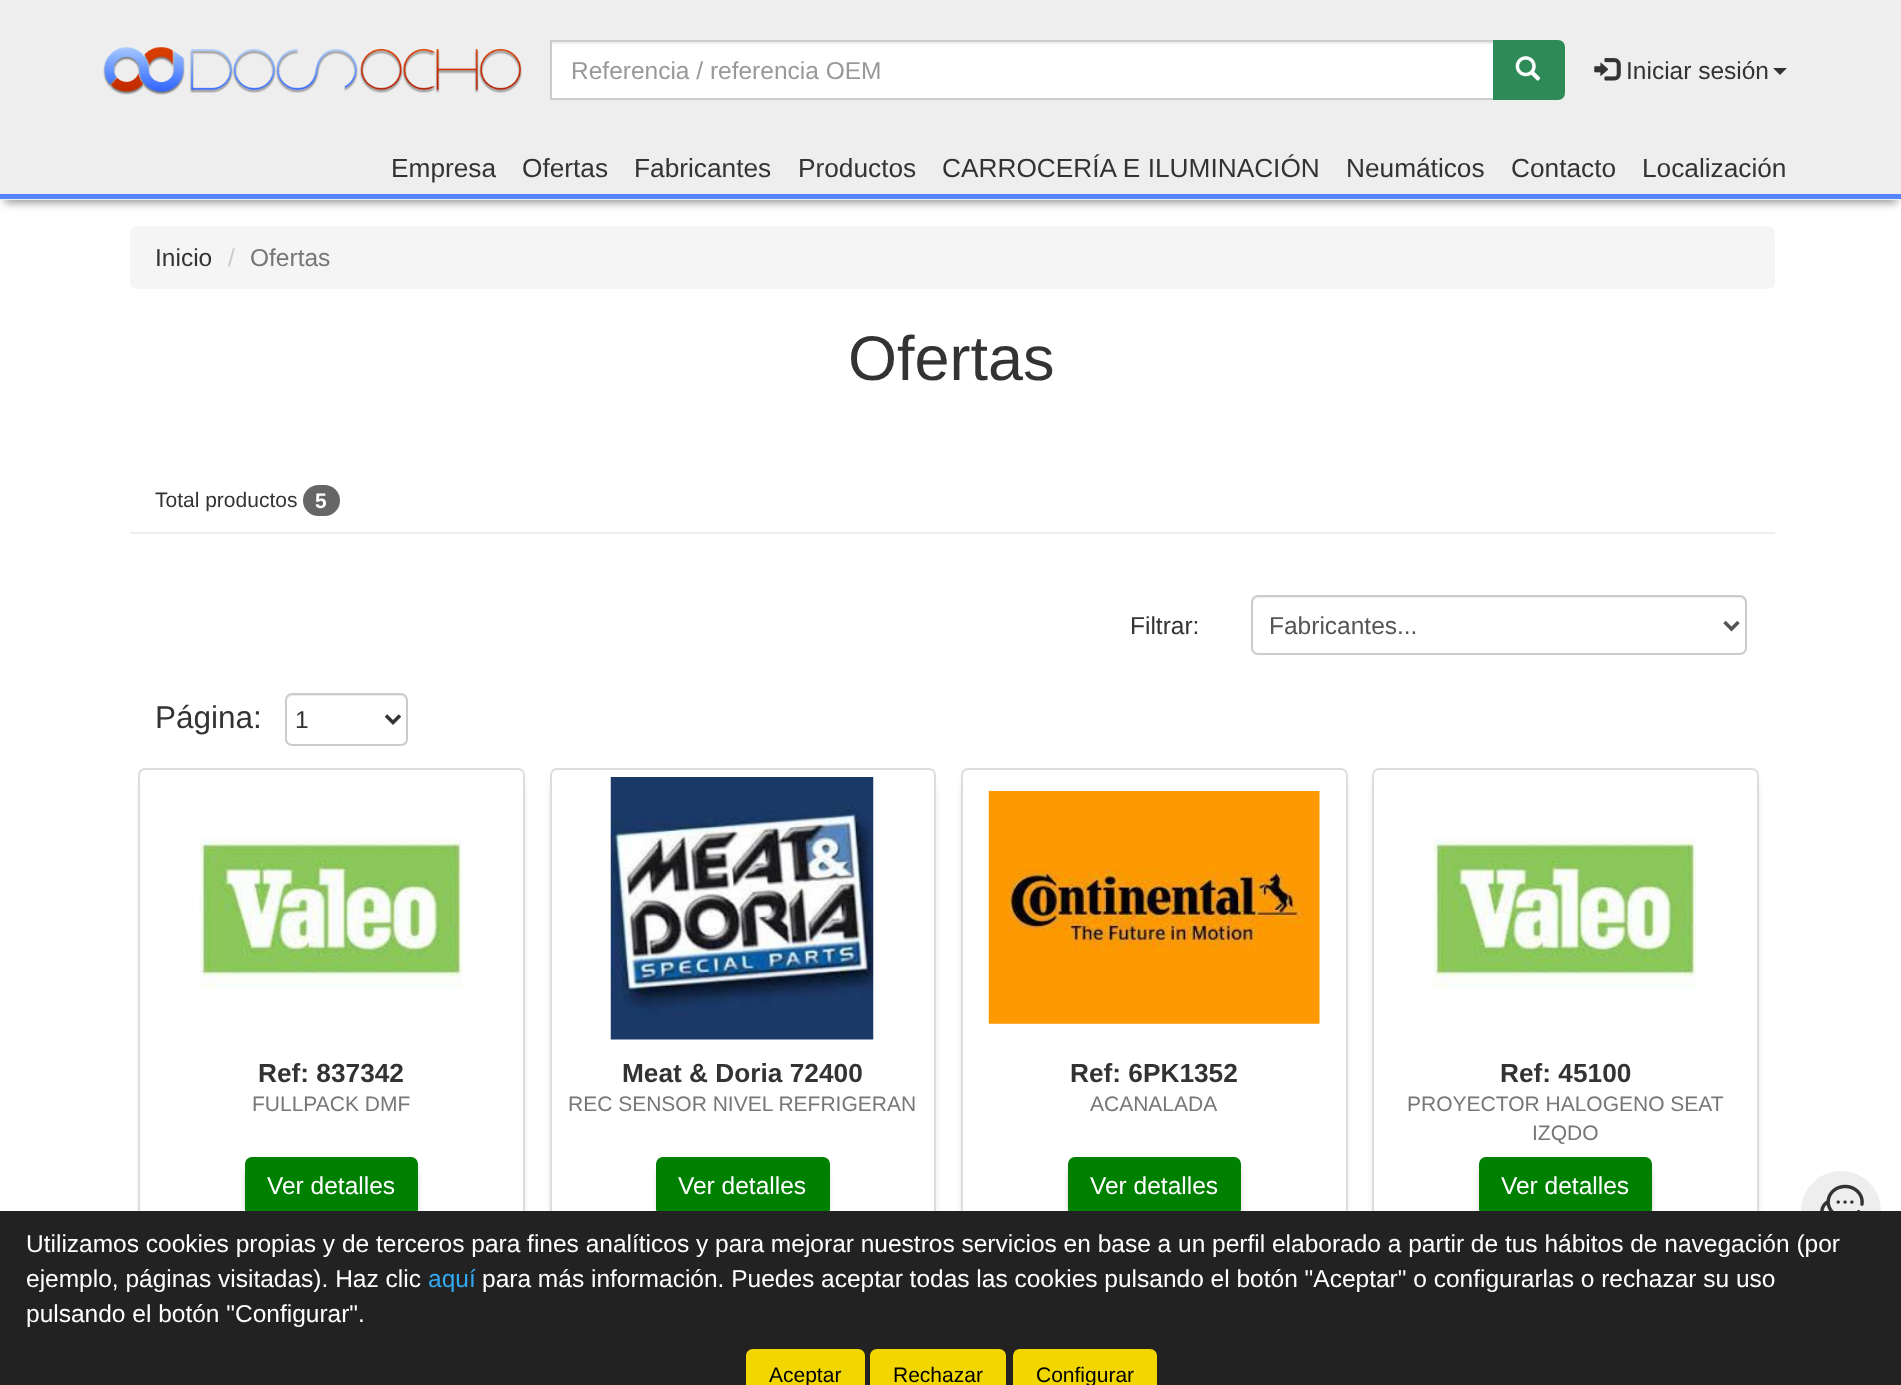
<svg xmlns="http://www.w3.org/2000/svg" width="1901" height="1385">
	<rect width="100%" height="100%" fill="#FFFFFF" />
	<rect x="0" y="0" width="1901" height="142" fill="#EEEEEE" />
	<image x="103" y="47" width="419" height="48" href="assets/img1.png" />
	<rect x="552" y="44" width="941" height="54" fill="#FFFFFF" />
	<rect x="551" y="41" width="943" height="58" fill="none" stroke="#CCCCCC" stroke-width="2" />
	<text x="571" y="79" font-family="Liberation Sans" font-size="24.5" fill="#999999">Referencia / referencia OEM</text>
	<path d="M1494 41H1558C1561.5 41 1564 43.5 1564 47V93C1564 96.5 1561.5 99 1558 99H1494Z" fill="#2E8B57" stroke="#2E8B57" stroke-width="2" />
	<image x="1515" y="56" width="26" height="25" href="assets/img2.png" />
	<image x="1594" y="58" width="27" height="23" href="assets/img3.png" />
	<text x="1626" y="79" font-family="Liberation Sans" font-size="24.5" fill="#333333">Iniciar sesión</text>
	<path d="M1773 68H1787L1780 75Z" fill="#333333" />
	<rect x="5" y="156" width="1892" height="47" fill="#000000" fill-opacity="0.4" filter="blur(4.5px)" />
	<rect x="0" y="142" width="1901" height="58" fill="#EEEEEE" />
	<rect x="0" y="194" width="1901" height="5" fill="#5686FF" />
	<g font-family="Liberation Sans" font-size="26.25" fill="#333333">
		<text x="391" y="177">Empresa</text>
		<text x="522" y="177">Ofertas</text>
		<text x="634" y="177">Fabricantes</text>
		<text x="798" y="177">Productos</text>
		<text x="942" y="177">CARROCERÍA E ILUMINACIÓN</text>
		<text x="1346" y="177">Neumáticos</text>
		<text x="1511" y="177">Contacto</text>
		<text x="1642" y="177">Localización</text>
	</g>
	<rect x="130" y="226" width="1645" height="63" rx="7" fill="#F5F5F5" />
	<text x="155" y="266" font-family="Liberation Sans" font-size="24.5" fill="#333333">Inicio</text>
	<text x="228" y="266" font-family="Liberation Sans" font-size="24.5" fill="#CCCCCC">/</text>
	<text x="250" y="266" font-family="Liberation Sans" font-size="24.5" fill="#777777">Ofertas</text>
	<text x="848" y="380" font-family="Liberation Sans" font-size="63" fill="#333333">Ofertas</text>
	<rect x="130" y="532" width="1645" height="2" fill="#EEEEEE" />
	<text x="155" y="507" font-family="Liberation Sans" font-size="21" fill="#333333">Total productos</text>
	<rect x="303" y="485" width="37" height="31" rx="15.5" fill="#666666" />
	<text x="315" y="508" font-family="Liberation Sans" font-size="21" font-weight="700" fill="#FFFFFF">5</text>
	<text x="1130" y="634" font-family="Liberation Sans" font-size="24.5" fill="#333333">Filtrar:</text>
	<path d="M1258 598H1740C1742 598 1745 601 1745 604V602C1745 599 1743 597 1740 597H1258C1255 597 1253 599 1253 602V604C1253 601 1255 598 1258 598Z" fill="#ECECEC" />
	<rect x="1252" y="596" width="494" height="58" rx="6" fill="none" stroke="#CCCCCC" stroke-width="2" />
	<path d="M1724.5 622L1731.5 629L1738.5 622" fill="none" stroke="#555555" stroke-width="3.5" />
	<text x="1269" y="634" font-family="Liberation Sans" font-size="24.5" fill="#555555">Fabricantes...</text>
	<text x="155" y="728" font-family="Liberation Sans" font-size="31.5" fill="#333333">Página:</text>
	<path d="M292 696H401C404 696 406 699 406 702V700C406 697 404 695 401 695H292C289 695 287 697 287 700V702C287 699 289 696 292 696Z" fill="#ECECEC" />
	<rect x="286" y="694" width="121" height="51" rx="6" fill="none" stroke="#CCCCCC" stroke-width="2" />
	<path d="M386 715.5L393 722.5L400 715.5" fill="none" stroke="#333333" stroke-width="3.5" />
	<text x="295" y="728" font-family="Liberation Sans" font-size="24.5" fill="#333333">1</text>
	<rect x="144" y="782" width="376" height="462" rx="2" fill="#000000" fill-opacity="0.4" filter="blur(4.5px)" />
	<rect x="139" y="769" width="385" height="471" rx="6" fill="#FFFFFF" stroke="#DDDDDD" stroke-width="2" />
	<image x="199" y="838" width="263" height="151" href="assets/img4.png" />
	<text x="258" y="1082" font-family="Liberation Sans" font-size="26.25" font-weight="700" fill="#333333">Ref: 837342</text>
	<text x="252" y="1111" font-family="Liberation Sans" font-size="21" fill="#777777">FULLPACK DMF</text>
	<rect x="250" y="1171" width="163" height="49" rx="2" fill="#000000" fill-opacity="0.8" filter="blur(4.5px)" />
	<rect x="246" y="1158" width="171" height="57" rx="6" fill="#008000" stroke="#008000" stroke-width="2" />
	<text x="267" y="1194" font-family="Liberation Sans" font-size="24.5" fill="#FFFFFF">Ver detalles</text>
	<rect x="555" y="782" width="376" height="462" rx="2" fill="#000000" fill-opacity="0.4" filter="blur(4.5px)" />
	<rect x="551" y="769" width="384" height="471" rx="6" fill="#FFFFFF" stroke="#DDDDDD" stroke-width="2" />
	<image x="610" y="777" width="264" height="263" href="assets/img5.png" />
	<text x="622" y="1082" font-family="Liberation Sans" font-size="26.25" font-weight="700" fill="#333333">Meat &amp; Doria 72400</text>
	<text x="568" y="1111" font-family="Liberation Sans" font-size="21" fill="#777777">REC SENSOR NIVEL REFRIGERAN</text>
	<rect x="662" y="1171" width="162" height="49" rx="2" fill="#000000" fill-opacity="0.8" filter="blur(4.5px)" />
	<rect x="657" y="1158" width="172" height="57" rx="6" fill="#008000" stroke="#008000" stroke-width="2" />
	<text x="678" y="1194" font-family="Liberation Sans" font-size="24.5" fill="#FFFFFF">Ver detalles</text>
	<rect x="966" y="782" width="376" height="462" rx="2" fill="#000000" fill-opacity="0.4" filter="blur(4.5px)" />
	<rect x="962" y="769" width="385" height="471" rx="6" fill="#FFFFFF" stroke="#DDDDDD" stroke-width="2" />
	<image x="988" y="791" width="332" height="233" href="assets/img6.png" />
	<text x="1070" y="1082" font-family="Liberation Sans" font-size="26.25" font-weight="700" fill="#333333">Ref: 6PK1352</text>
	<text x="1090" y="1111" font-family="Liberation Sans" font-size="21" fill="#777777">ACANALADA</text>
	<rect x="1073" y="1171" width="163" height="49" rx="2" fill="#000000" fill-opacity="0.8" filter="blur(4.5px)" />
	<rect x="1069" y="1158" width="171" height="57" rx="6" fill="#008000" stroke="#008000" stroke-width="2" />
	<text x="1090" y="1194" font-family="Liberation Sans" font-size="24.5" fill="#FFFFFF">Ver detalles</text>
	<rect x="1377" y="782" width="377" height="462" rx="2" fill="#000000" fill-opacity="0.4" filter="blur(4.5px)" />
	<rect x="1373" y="769" width="385" height="471" rx="6" fill="#FFFFFF" stroke="#DDDDDD" stroke-width="2" />
	<image x="1433" y="838" width="263" height="151" href="assets/img7.png" />
	<text x="1500" y="1082" font-family="Liberation Sans" font-size="26.25" font-weight="700" fill="#333333">Ref: 45100</text>
	<g font-family="Liberation Sans" font-size="21" fill="#777777">
		<text x="1407" y="1111">PROYECTOR HALOGENO SEAT</text>
		<text x="1532" y="1140">IZQDO</text>
	</g>
	<rect x="1484" y="1171" width="163" height="49" rx="2" fill="#000000" fill-opacity="0.8" filter="blur(4.5px)" />
	<rect x="1480" y="1158" width="171" height="57" rx="6" fill="#008000" stroke="#008000" stroke-width="2" />
	<text x="1501" y="1194" font-family="Liberation Sans" font-size="24.5" fill="#FFFFFF">Ver detalles</text>
	<circle cx="1841" cy="1211" r="42" fill="#EEEEEE" stroke="#FFFFFF" stroke-width="4" />
	<image x="1820" y="1184" width="44" height="27" href="assets/img8.png" />
	<rect x="0" y="1211" width="1901" height="174" fill="#222222" />
	<g font-family="Liberation Sans" font-size="24.5" fill="#FFFFFF">
		<text x="26" y="1252">Utilizamos cookies propias y de terceros para fines analíticos y para mejorar nuestros servicios en base a un perfil elaborado a partir de tus hábitos de navegación (por</text>
		<text x="26" y="1287">ejemplo, páginas visitadas). Haz clic</text>
	</g>
	<text x="428" y="1287" font-family="Liberation Sans" font-size="24.5" fill="#31A8F0">aquí</text>
	<g font-family="Liberation Sans" font-size="24.5" fill="#FFFFFF">
		<text x="482" y="1287">para más información. Puedes aceptar todas las cookies pulsando el botón "Aceptar" o configurarlas o rechazar su uso</text>
		<text x="26" y="1322">pulsando el botón "Configurar".</text>
	</g>
	<path d="M753 1349H858C862 1349 865 1352 865 1356V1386H746V1356C746 1352 749 1349 753 1349Z" fill="#F1D600" />
	<text x="769" y="1382" font-family="Liberation Sans" font-size="21" fill="#000000">Aceptar</text>
	<path d="M877 1349H999C1003 1349 1006 1352 1006 1356V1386H870V1356C870 1352 873 1349 877 1349Z" fill="#F1D600" />
	<text x="893" y="1382" font-family="Liberation Sans" font-size="21" fill="#000000">Rechazar</text>
	<path d="M1020 1349H1150C1154 1349 1157 1352 1157 1356V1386H1013V1356C1013 1352 1016 1349 1020 1349Z" fill="#F1D600" />
	<text x="1036" y="1382" font-family="Liberation Sans" font-size="21" fill="#000000">Configurar</text>
</svg>
